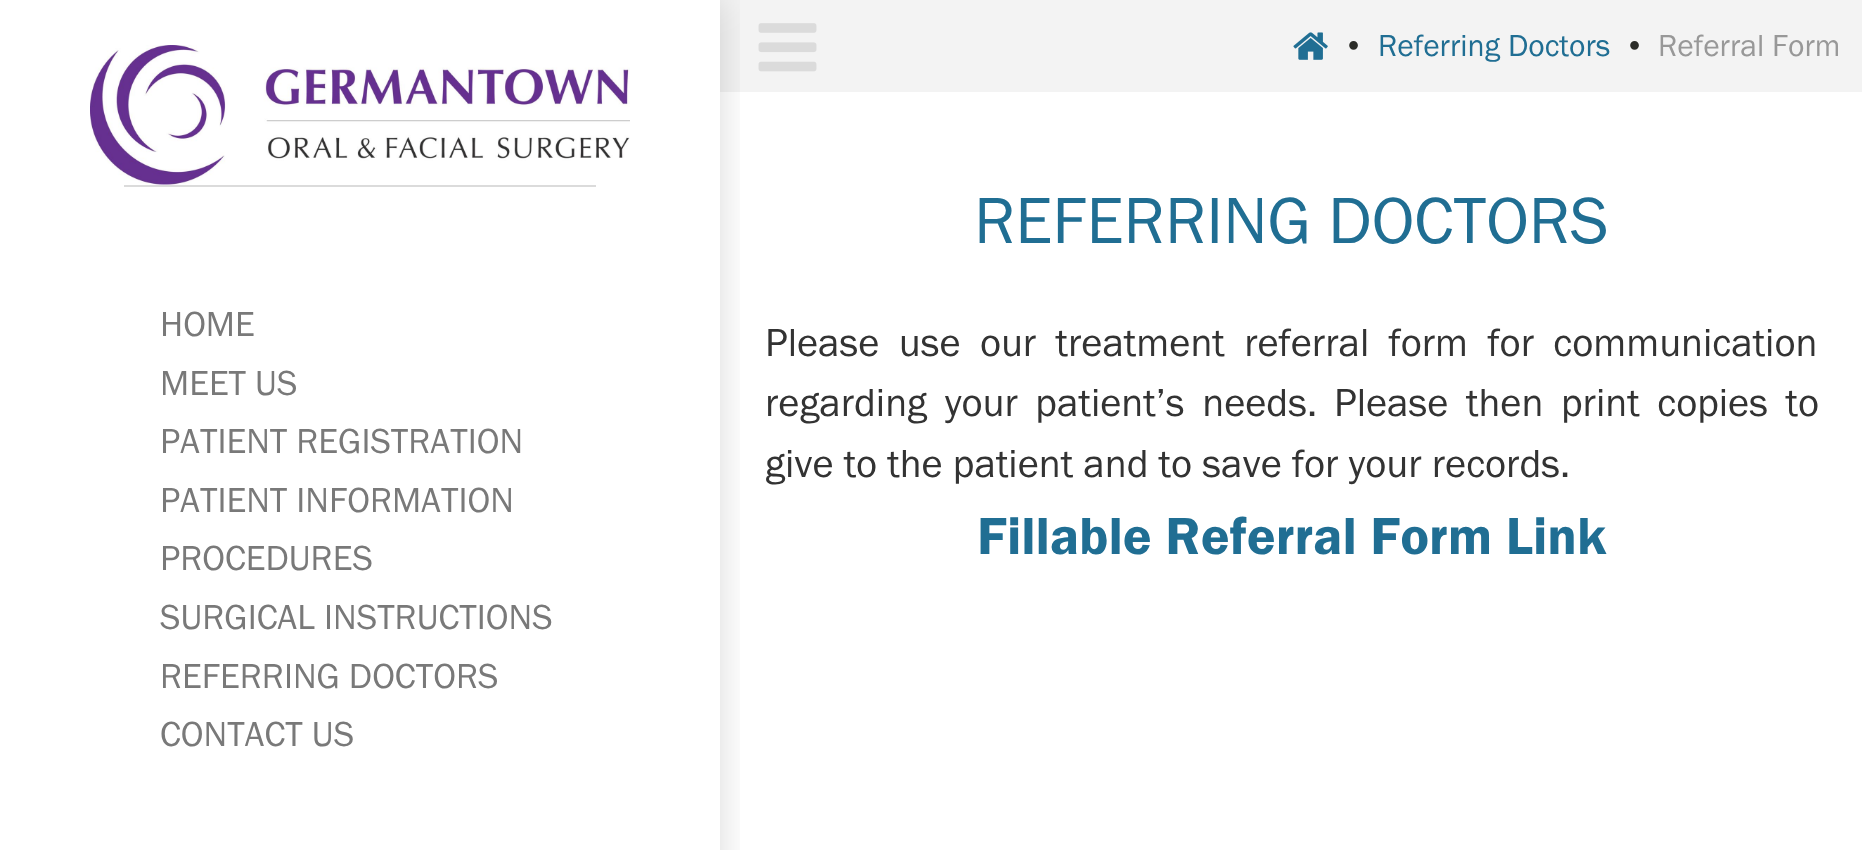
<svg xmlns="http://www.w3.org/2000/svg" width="1862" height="850">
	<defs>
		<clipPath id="clip1"><rect x="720" y="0" width="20" height="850" /></clipPath>
	</defs>
	<rect width="100%" height="100%" fill="#FFFFFF" />
	<rect x="720" y="0" width="1142" height="92" fill="#F3F3F3" />
	<image x="758" y="23" width="59" height="49" href="assets/img2.png" />
	<g clip-path="url(#clip1)">
		<rect x="0" y="0" width="720" height="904" fill="#000000" fill-opacity="0.15" filter="blur(18px)" />
	</g>
	<image x="90" y="45" width="540" height="140" href="assets/img1.png" />
	<rect x="124" y="185" width="472" height="2" fill="#DBDBDB" />
	<g font-family="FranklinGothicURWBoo" font-size="36" fill="#797979">
		<text x="160" y="336">HOME</text>
		<text x="160" y="395">MEET US</text>
		<text x="160" y="453">PATIENT REGISTRATION</text>
		<text x="160" y="512">PATIENT INFORMATION</text>
		<text x="160" y="570">PROCEDURES</text>
		<text x="160" y="629">SURGICAL INSTRUCTIONS</text>
		<text x="160" y="688">REFERRING DOCTORS</text>
		<text x="160" y="746">CONTACT US</text>
	</g>
	<image x="1293" y="32" width="35" height="28" href="assets/img3.png" />
	<text x="1343" y="56" font-family="FranklinGothicURWBoo" font-size="31.5" fill="#2B2C28">•</text>
	<text x="1378" y="56" font-family="FranklinGothicURWBoo" font-size="31.5" fill="#206E93">Referring Doctors</text>
	<text x="1624" y="56" font-family="FranklinGothicURWBoo" font-size="31.5" fill="#2B2C28">•</text>
	<text x="1658" y="56" font-family="FranklinGothicURWBoo" font-size="31.5" fill="#989898">Referral Form</text>
	<text x="974" y="243" font-family="FranklinGothicURWBoo" font-size="67.5" fill="#206E93">REFERRING DOCTORS</text>
	<g font-family="FranklinGothicURWBoo" font-size="40.5" fill="#333333">
		<text x="765" y="356" word-spacing="9.25">Please use our treatment referral form for communication</text>
		<text x="765" y="416" word-spacing="7.5">regarding your patient’s needs.</text>
		<text x="1334" y="416" word-spacing="7.5">Please then print copies to</text>
		<text x="765" y="477">give to the patient and to save for your records.</text>
	</g>
	<text x="977" y="554" font-family="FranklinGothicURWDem" font-size="54" fill="#206E93">Fillable Referral Form Link</text>
</svg>
